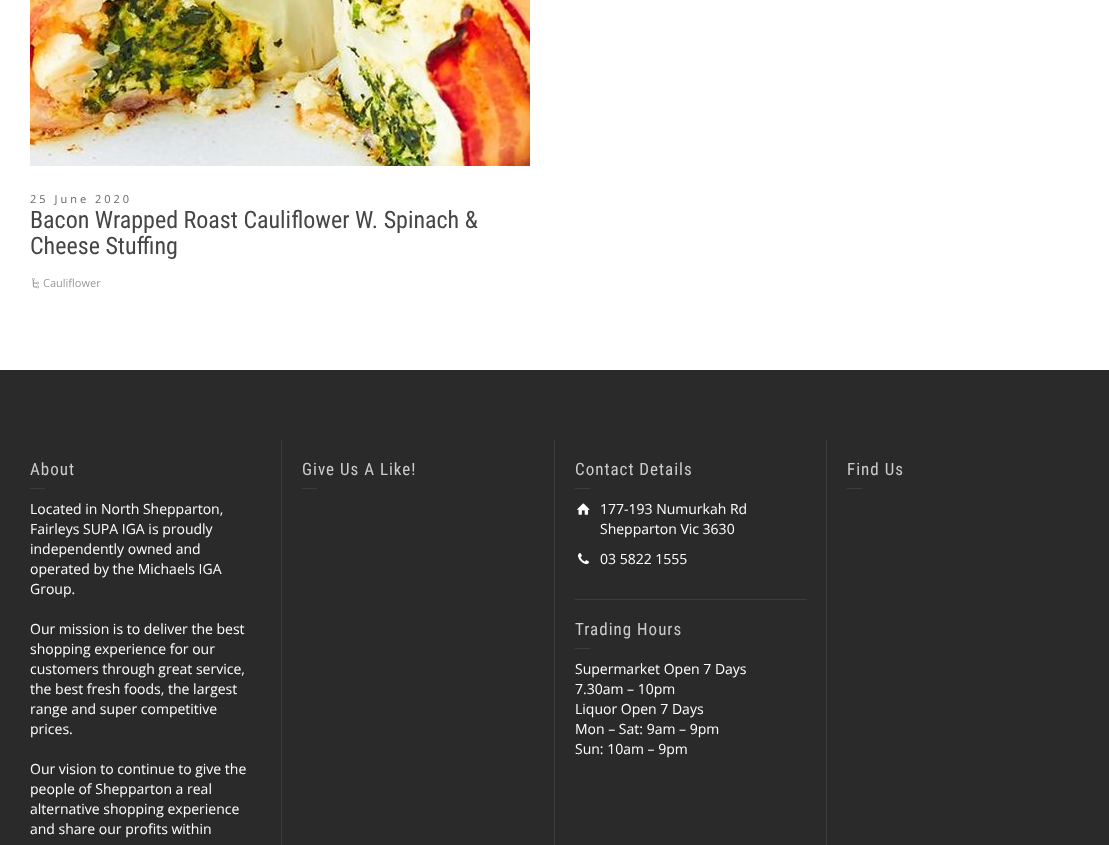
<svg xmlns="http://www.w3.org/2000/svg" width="1109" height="845">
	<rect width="100%" height="100%" fill="#2A2A2A" />
	<rect x="0" y="0" width="1109" height="370" fill="#FFFFFF" />
	<image x="30" y="0" width="500" height="166" href="assets/img1.png" />
	<text x="30" y="203" font-family="Open Sans" font-size="11" letter-spacing="3" fill="#666666">25 June 2020</text>
	<g font-family="Roboto Condensed" font-size="24" fill="#454545">
		<text x="30" y="228">Bacon Wrapped Roast Cauliflower W. Spinach &amp;</text>
		<text x="30" y="254">Cheese Stuffing</text>
	</g>
	<image x="32" y="278" width="7" height="11" href="assets/img2.png" />
	<text x="43" y="287" font-family="Open Sans" font-size="11" fill="#999999">Cauliflower</text>
	<text x="30" y="475" font-family="Roboto Condensed" font-size="17" letter-spacing="1" fill="#CCCCCC">About</text>
	<rect x="30" y="488" width="15" height="1" fill="#3C3C3C" />
	<g font-family="Open Sans" font-size="14" fill="#FFFFFF">
		<text x="30" y="514">Located in North Shepparton,</text>
		<text x="30" y="534">Fairleys SUPA IGA is proudly</text>
		<text x="30" y="554">independently owned and</text>
		<text x="30" y="574">operated by the Michaels IGA</text>
		<text x="30" y="594">Group.</text>
		<text x="30" y="634">Our mission is to deliver the best</text>
		<text x="30" y="654">shopping experience for our</text>
		<text x="30" y="674">customers through great service,</text>
		<text x="30" y="694">the best fresh foods, the largest</text>
		<text x="30" y="714">range and super competitive</text>
		<text x="30" y="734">prices.</text>
		<text x="30" y="774">Our vision to continue to give the</text>
		<text x="30" y="794">people of Shepparton a real</text>
		<text x="30" y="814">alternative shopping experience</text>
		<text x="30" y="834">and share our profits within</text>
	</g>
	<rect x="281" y="440" width="1" height="405" fill="#3C3C3C" />
	<text x="302" y="475" font-family="Roboto Condensed" font-size="17" letter-spacing="1" fill="#CCCCCC">Give Us A Like!</text>
	<rect x="302" y="488" width="15" height="1" fill="#3C3C3C" />
	<rect x="554" y="440" width="1" height="405" fill="#3C3C3C" />
	<text x="575" y="475" font-family="Roboto Condensed" font-size="17" letter-spacing="1" fill="#CCCCCC">Contact Details</text>
	<rect x="575" y="488" width="15" height="1" fill="#3C3C3C" />
	<image x="577" y="503" width="13" height="12" href="assets/img3.png" />
	<g font-family="Open Sans" font-size="14" fill="#FFFFFF">
		<text x="600" y="514">177-193 Numurkah Rd</text>
		<text x="600" y="534">Shepparton Vic 3630</text>
	</g>
	<image x="578" y="553" width="11" height="12" href="assets/img4.png" />
	<text x="600" y="564" font-family="Open Sans" font-size="14" fill="#FFFFFF">03 5822 1555</text>
	<rect x="575" y="599" width="232" height="1" fill="#3C3C3C" />
	<text x="575" y="635" font-family="Roboto Condensed" font-size="17" letter-spacing="1" fill="#CCCCCC">Trading Hours</text>
	<rect x="575" y="648" width="15" height="1" fill="#3C3C3C" />
	<g font-family="Open Sans" font-size="14" fill="#FFFFFF">
		<text x="575" y="674">Supermarket Open 7 Days</text>
		<text x="575" y="694">7.30am – 10pm</text>
		<text x="575" y="714">Liquor Open 7 Days</text>
		<text x="575" y="734">Mon – Sat: 9am – 9pm</text>
		<text x="575" y="754">Sun: 10am – 9pm</text>
	</g>
	<rect x="826" y="440" width="1" height="405" fill="#3C3C3C" />
	<text x="847" y="475" font-family="Roboto Condensed" font-size="17" letter-spacing="1" fill="#CCCCCC">Find Us</text>
	<rect x="847" y="488" width="15" height="1" fill="#3C3C3C" />
</svg>
